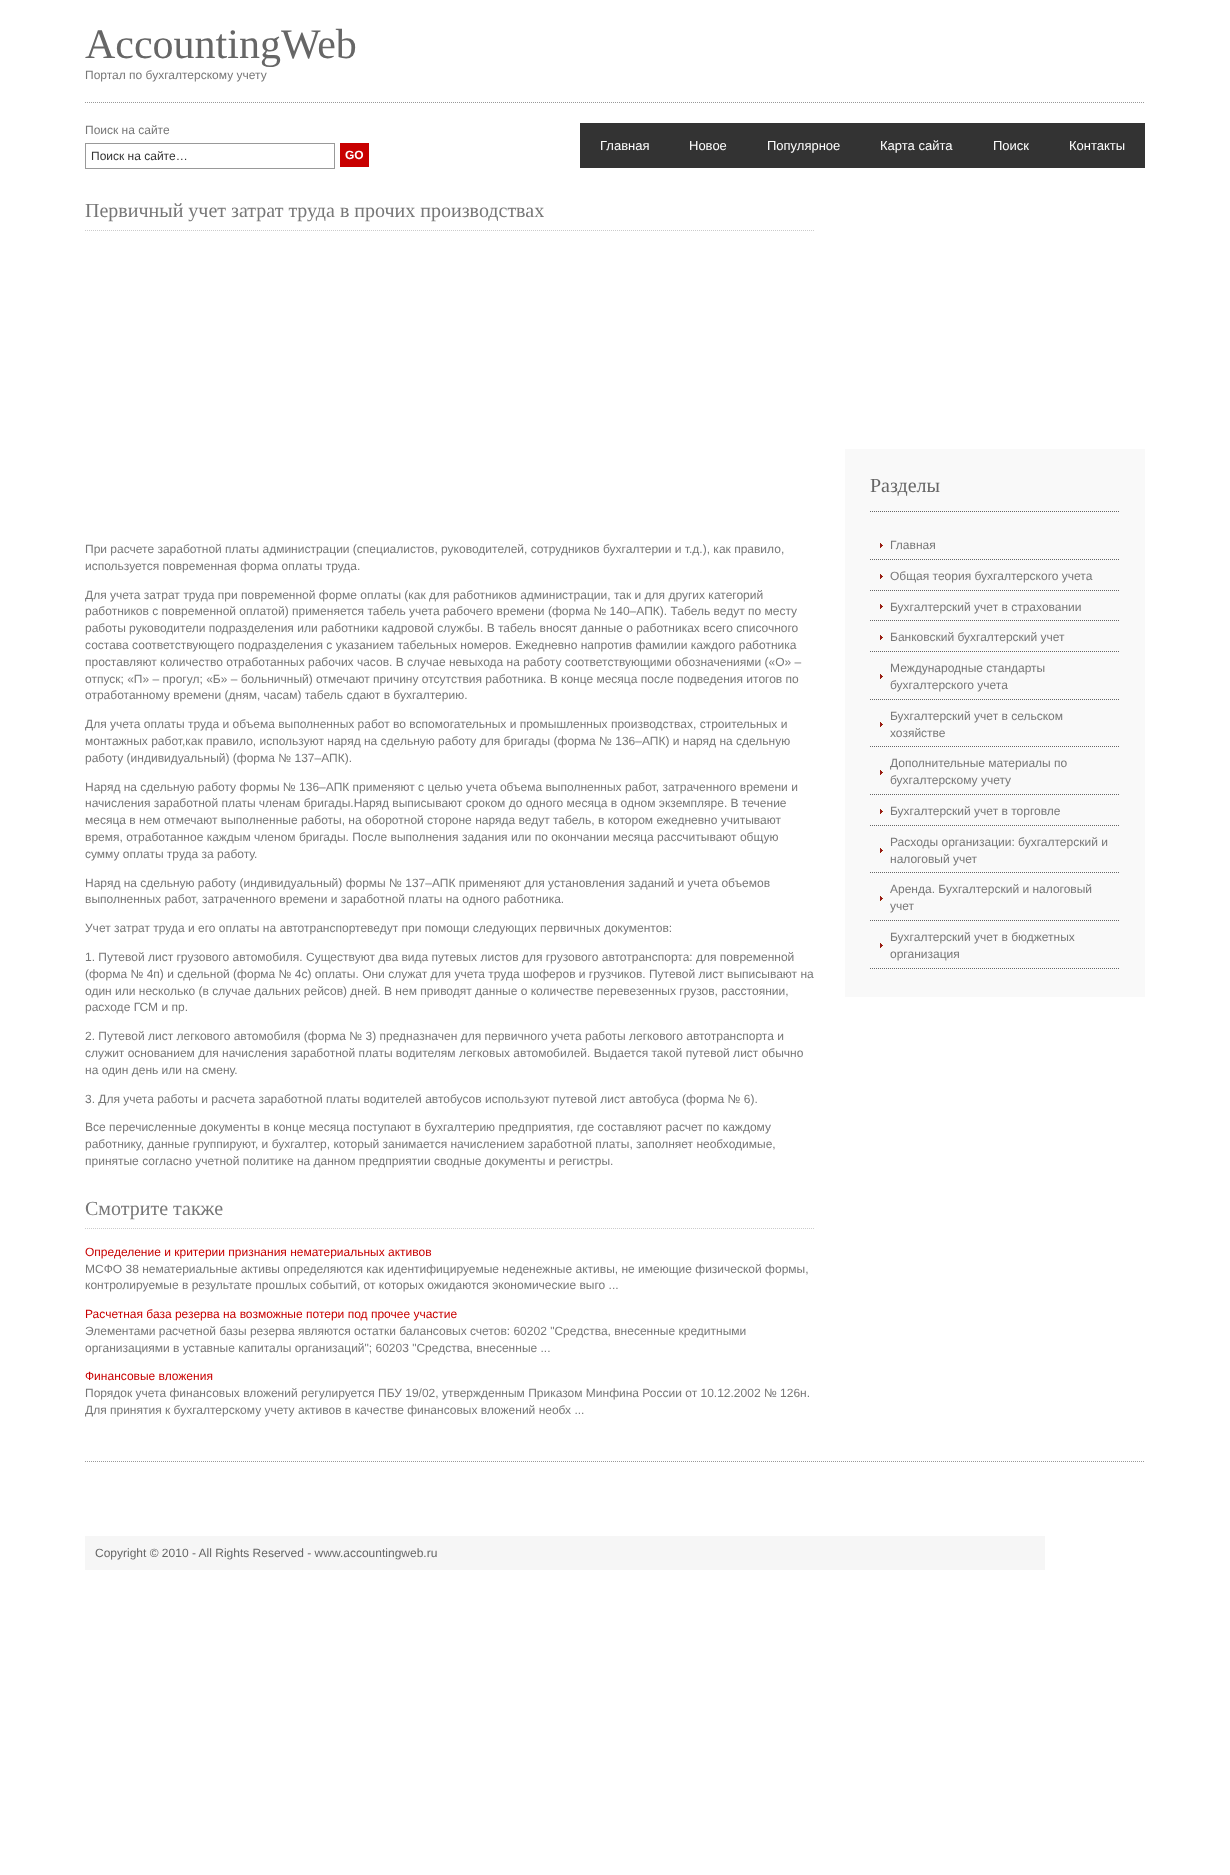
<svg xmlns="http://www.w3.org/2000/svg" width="1230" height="1875">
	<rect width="100%" height="100%" fill="#FFFFFF" />
	<path d="M85 102.5H1145" fill="none" stroke="#999999" stroke-dasharray="1 1" />
	<text x="85" y="58" font-family="Liberation Serif" font-size="42" fill="#666666">AccountingWeb</text>
	<g font-family="Liberation Sans" font-size="12" fill="#777777">
		<text x="85" y="79">Портал по бухгалтерскому учету</text>
		<text x="85" y="134">Поиск на сайте</text>
	</g>
	<rect x="85.5" y="143.5" width="249" height="25" fill="none" stroke="#999999" />
	<text x="91" y="160" font-family="Liberation Sans" font-size="12" fill="#333333">Поиск на сайте…</text>
	<rect x="340" y="143" width="29" height="24" fill="#C80000" />
	<text x="345" y="159" font-family="Liberation Sans" font-size="12" font-weight="700" fill="#FFFFFF">GO</text>
	<rect x="580" y="123" width="565" height="45" fill="#333333" />
	<g font-family="Liberation Sans" font-size="13" fill="#FFFFFF">
		<text x="600" y="150">Главная</text>
		<text x="689" y="150">Новое</text>
		<text x="767" y="150">Популярное</text>
		<text x="880" y="150">Карта сайта</text>
		<text x="993" y="150">Поиск</text>
		<text x="1069" y="150">Контакты</text>
	</g>
	<path d="M85 230.5H815" fill="none" stroke="#CCCCCC" stroke-dasharray="1 1" />
	<text x="85" y="217" font-family="Liberation Serif" font-size="20" fill="#777777">Первичный учет затрат труда в прочих производствах</text>
	<g font-family="Liberation Sans" font-size="12" fill="#777777">
		<text x="85" y="553">При расчете заработной платы администрации (специалистов, руководителей, сотрудников бухгалтерии и т.д.), как правило,</text>
		<text x="85" y="570">используется повременная форма оплаты труда.</text>
		<text x="85" y="599">Для учета затрат труда при повременной форме оплаты (как для работников администрации, так и для других категорий</text>
		<text x="85" y="615">работников с повременной оплатой) применяется табель учета рабочего времени (форма № 140–АПК). Табель ведут по месту</text>
		<text x="85" y="632">работы руководители подразделения или работники кадровой службы. В табель вносят данные о работниках всего списочного</text>
		<text x="85" y="649">состава соответствующего подразделения с указанием табельных номеров. Ежедневно напротив фамилии каждого работника</text>
		<text x="85" y="666">проставляют количество отработанных рабочих часов. В случае невыхода на работу соответствующими обозначениями («О» –</text>
		<text x="85" y="683">отпуск; «П» – прогул; «Б» – больничный) отмечают причину отсутствия работника. В конце месяца после подведения итогов по</text>
		<text x="85" y="699">отработанному времени (дням, часам) табель сдают в бухгалтерию.</text>
		<text x="85" y="728">Для учета оплаты труда и объема выполненных работ во вспомогательных и промышленных производствах, строительных и</text>
		<text x="85" y="745">монтажных работ,как правило, используют наряд на сдельную работу для бригады (форма № 136–АПК) и наряд на сдельную</text>
		<text x="85" y="762">работу (индивидуальный) (форма № 137–АПК).</text>
		<text x="85" y="791">Наряд на сдельную работу формы № 136–АПК применяют с целью учета объема выполненных работ, затраченного времени и</text>
		<text x="85" y="807">начисления заработной платы членам бригады.Наряд выписывают сроком до одного месяца в одном экземпляре. В течение</text>
		<text x="85" y="824">месяца в нем отмечают выполненные работы, на оборотной стороне наряда ведут табель, в котором ежедневно учитывают</text>
		<text x="85" y="841">время, отработанное каждым членом бригады. После выполнения задания или по окончании месяца рассчитывают общую</text>
		<text x="85" y="858">сумму оплаты труда за работу.</text>
		<text x="85" y="887">Наряд на сдельную работу (индивидуальный) формы № 137–АПК применяют для установления заданий и учета объемов</text>
		<text x="85" y="903">выполненных работ, затраченного времени и заработной платы на одного работника.</text>
		<text x="85" y="932">Учет затрат труда и его оплаты на автотранспортеведут при помощи следующих первичных документов:</text>
		<text x="85" y="961">1. Путевой лист грузового автомобиля. Существуют два вида путевых листов для грузового автотранспорта: для повременной</text>
		<text x="85" y="978">(форма № 4п) и сдельной (форма № 4с) оплаты. Они служат для учета труда шоферов и грузчиков. Путевой лист выписывают на</text>
		<text x="85" y="995">один или несколько (в случае дальних рейсов) дней. В нем приводят данные о количестве перевезенных грузов, расстоянии,</text>
		<text x="85" y="1011">расходе ГСМ и пр.</text>
		<text x="85" y="1040">2. Путевой лист легкового автомобиля (форма № 3) предназначен для первичного учета работы легкового автотранспорта и</text>
		<text x="85" y="1057">служит основанием для начисления заработной платы водителям легковых автомобилей. Выдается такой путевой лист обычно</text>
		<text x="85" y="1074">на один день или на смену.</text>
		<text x="85" y="1103">3. Для учета работы и расчета заработной платы водителей автобусов используют путевой лист автобуса (форма № 6).</text>
		<text x="85" y="1131">Все перечисленные документы в конце месяца поступают в бухгалтерию предприятия, где составляют расчет по каждому</text>
		<text x="85" y="1148">работнику, данные группируют, и бухгалтер, который занимается начислением заработной платы, заполняет необходимые,</text>
		<text x="85" y="1165">принятые согласно учетной политике на данном предприятии сводные документы и регистры.</text>
	</g>
	<path d="M85 1228.5H815" fill="none" stroke="#CCCCCC" stroke-dasharray="1 1" />
	<text x="85" y="1215" font-family="Liberation Serif" font-size="20" fill="#777777">Смотрите также</text>
	<text x="85" y="1256" font-family="Liberation Sans" font-size="12" fill="#C80000">Определение и критерии признания нематериальных активов</text>
	<g font-family="Liberation Sans" font-size="12" fill="#777777">
		<text x="85" y="1273">МСФО 38 нематериальные активы определяются как идентифицируемые неденежные активы, не имеющие физической формы,</text>
		<text x="85" y="1289">контролируемые в результате прошлых событий, от которых ожидаются экономические выго ...</text>
	</g>
	<text x="85" y="1318" font-family="Liberation Sans" font-size="12" fill="#C80000">Расчетная база резерва на возможные потери под прочее участие</text>
	<g font-family="Liberation Sans" font-size="12" fill="#777777">
		<text x="85" y="1335">Элементами расчетной базы резерва являются остатки балансовых счетов: 60202 "Средства, внесенные кредитными</text>
		<text x="85" y="1352">организациями в уставные капиталы организаций"; 60203 "Средства, внесенные ...</text>
	</g>
	<text x="85" y="1380" font-family="Liberation Sans" font-size="12" fill="#C80000">Финансовые вложения</text>
	<g font-family="Liberation Sans" font-size="12" fill="#777777">
		<text x="85" y="1397">Порядок учета финансовых вложений регулируется ПБУ 19/02, утвержденным Приказом Минфина России от 10.12.2002 № 126н.</text>
		<text x="85" y="1414">Для принятия к бухгалтерскому учету активов в качестве финансовых вложений необх ...</text>
	</g>
	<rect x="845" y="449" width="300" height="548" fill="#F9F9F9" />
	<path d="M870 511.5H1120" fill="none" stroke="#666666" stroke-dasharray="1 1" />
	<text x="870" y="492" font-family="Liberation Serif" font-size="20" fill="#666666">Разделы</text>
	<image x="880" y="543" width="3" height="5" href="assets/img1.png" />
	<path d="M870 559.5H1120" fill="none" stroke="#666666" stroke-dasharray="1 1" />
	<text x="890" y="549" font-family="Liberation Sans" font-size="12" fill="#777777">Главная</text>
	<image x="880" y="574" width="3" height="5" href="assets/img1.png" />
	<path d="M870 590.5H1120" fill="none" stroke="#666666" stroke-dasharray="1 1" />
	<text x="890" y="580" font-family="Liberation Sans" font-size="12" fill="#777777">Общая теория бухгалтерского учета</text>
	<image x="880" y="604" width="3" height="5" href="assets/img1.png" />
	<path d="M870 620.5H1120" fill="none" stroke="#666666" stroke-dasharray="1 1" />
	<text x="890" y="611" font-family="Liberation Sans" font-size="12" fill="#777777">Бухгалтерский учет в страховании</text>
	<image x="880" y="635" width="3" height="5" href="assets/img1.png" />
	<path d="M870 651.5H1120" fill="none" stroke="#666666" stroke-dasharray="1 1" />
	<text x="890" y="641" font-family="Liberation Sans" font-size="12" fill="#777777">Банковский бухгалтерский учет</text>
	<image x="880" y="674" width="3" height="5" href="assets/img1.png" />
	<path d="M870 699.5H1120" fill="none" stroke="#666666" stroke-dasharray="1 1" />
	<g font-family="Liberation Sans" font-size="12" fill="#777777">
		<text x="890" y="672">Международные стандарты</text>
		<text x="890" y="689">бухгалтерского учета</text>
	</g>
	<image x="880" y="722" width="3" height="5" href="assets/img1.png" />
	<path d="M870 746.5H1120" fill="none" stroke="#666666" stroke-dasharray="1 1" />
	<g font-family="Liberation Sans" font-size="12" fill="#777777">
		<text x="890" y="720">Бухгалтерский учет в сельском</text>
		<text x="890" y="737">хозяйстве</text>
	</g>
	<image x="880" y="770" width="3" height="5" href="assets/img1.png" />
	<path d="M870 794.5H1120" fill="none" stroke="#666666" stroke-dasharray="1 1" />
	<g font-family="Liberation Sans" font-size="12" fill="#777777">
		<text x="890" y="767">Дополнительные материалы по</text>
		<text x="890" y="784">бухгалтерскому учету</text>
	</g>
	<image x="880" y="809" width="3" height="5" href="assets/img1.png" />
	<path d="M870 825.5H1120" fill="none" stroke="#666666" stroke-dasharray="1 1" />
	<text x="890" y="815" font-family="Liberation Sans" font-size="12" fill="#777777">Бухгалтерский учет в торговле</text>
	<image x="880" y="848" width="3" height="5" href="assets/img1.png" />
	<path d="M870 872.5H1120" fill="none" stroke="#666666" stroke-dasharray="1 1" />
	<g font-family="Liberation Sans" font-size="12" fill="#777777">
		<text x="890" y="846">Расходы организации: бухгалтерский и</text>
		<text x="890" y="863">налоговый учет</text>
	</g>
	<image x="880" y="896" width="3" height="5" href="assets/img1.png" />
	<path d="M870 920.5H1120" fill="none" stroke="#666666" stroke-dasharray="1 1" />
	<g font-family="Liberation Sans" font-size="12" fill="#777777">
		<text x="890" y="893">Аренда. Бухгалтерский и налоговый</text>
		<text x="890" y="910">учет</text>
	</g>
	<image x="880" y="943" width="3" height="5" href="assets/img1.png" />
	<path d="M870 968.5H1120" fill="none" stroke="#666666" stroke-dasharray="1 1" />
	<g font-family="Liberation Sans" font-size="12" fill="#777777">
		<text x="890" y="941">Бухгалтерский учет в бюджетных</text>
		<text x="890" y="958">организация</text>
	</g>
	<path d="M85 1461.5H1145" fill="none" stroke="#999999" stroke-dasharray="1 1" />
	<rect x="85" y="1536" width="960" height="34" fill="#F6F6F6" />
	<text x="95" y="1557" font-family="Liberation Sans" font-size="12" fill="#666666">Copyright © 2010 - All Rights Reserved - www.accountingweb.ru</text>
</svg>
